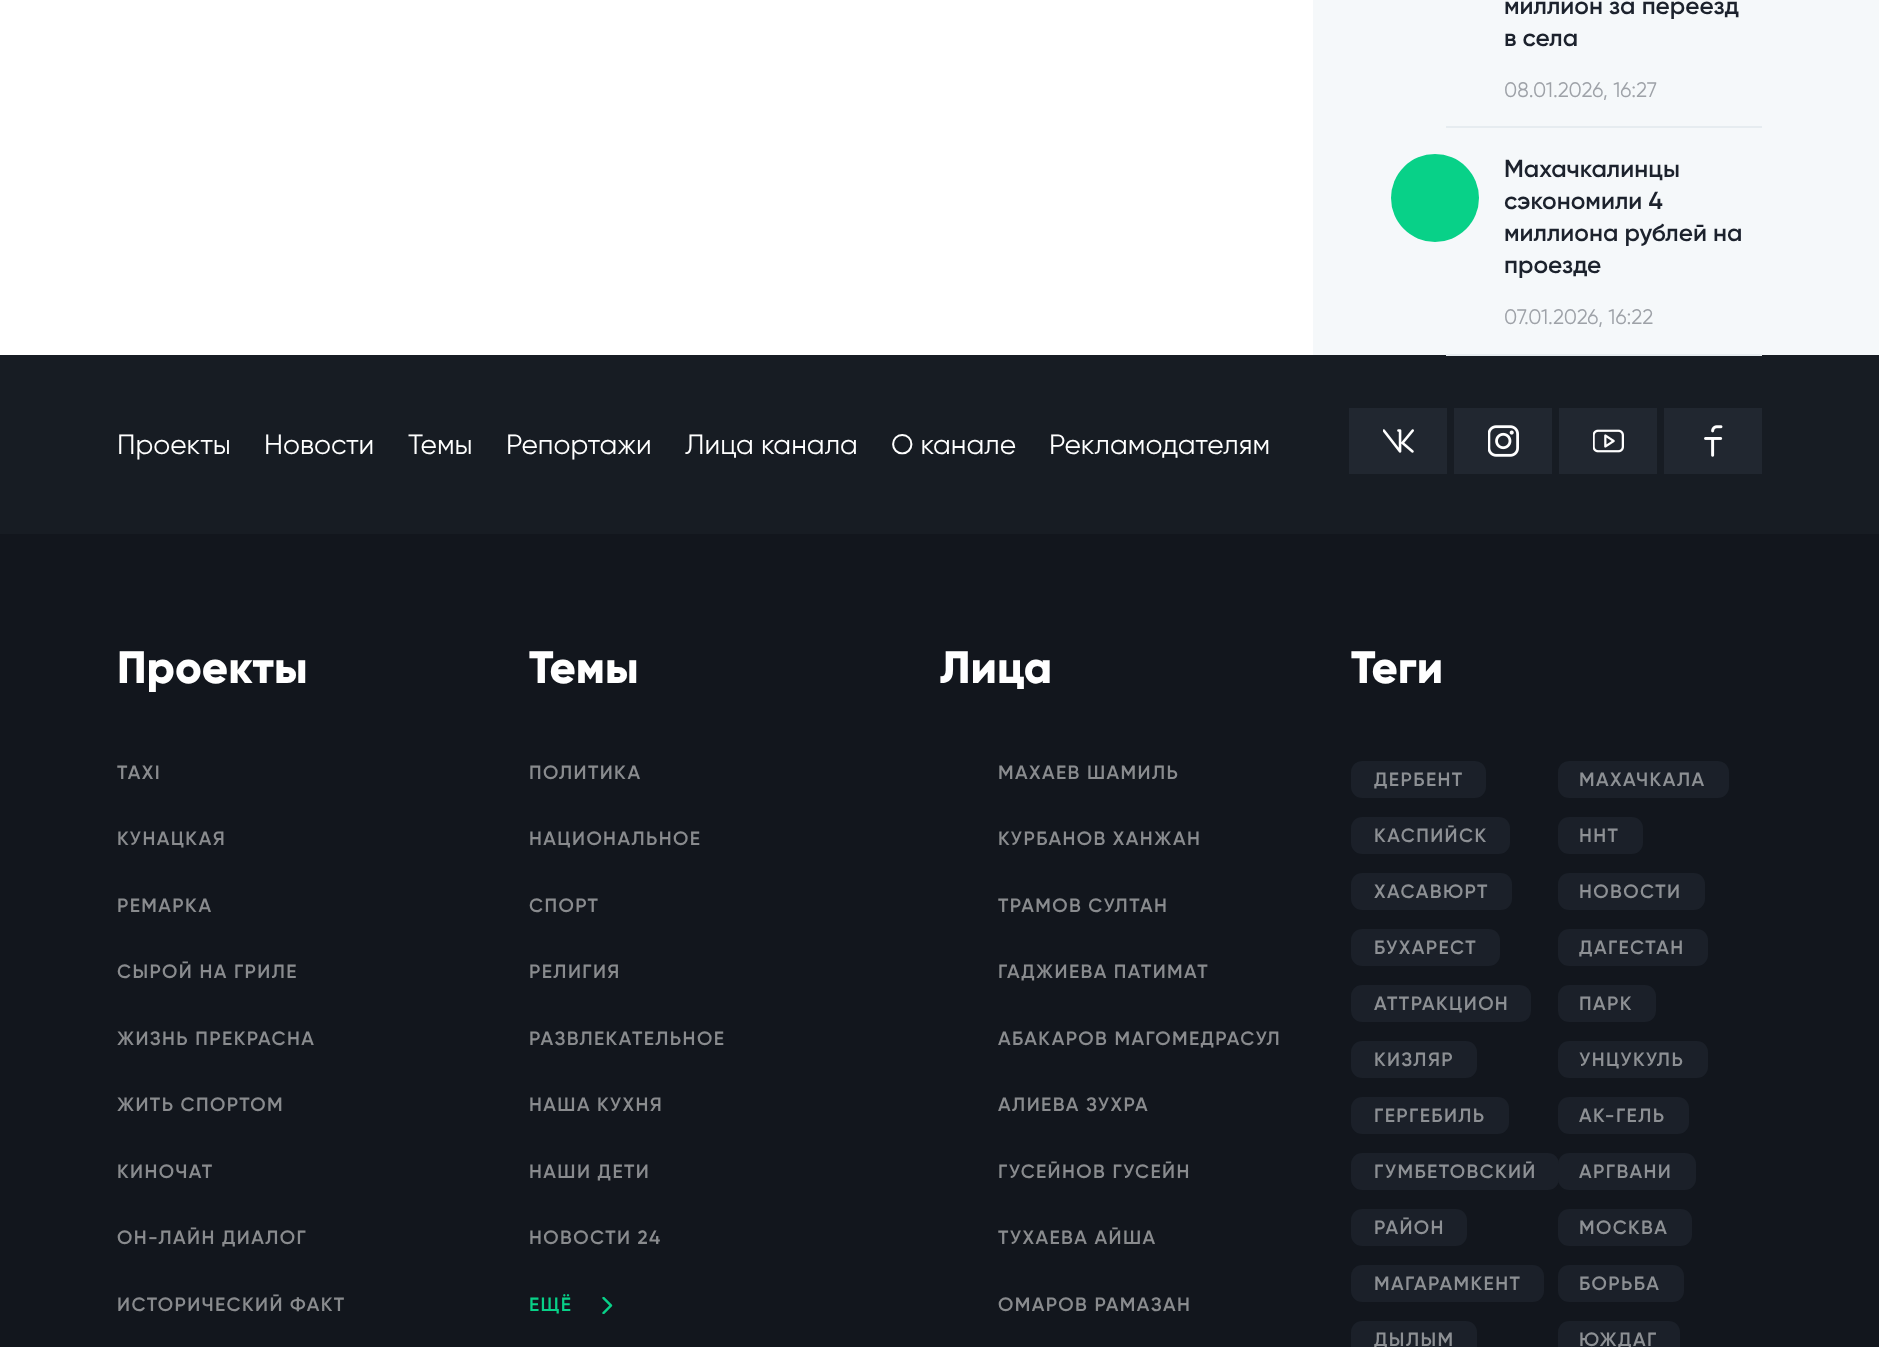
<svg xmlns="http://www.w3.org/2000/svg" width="1879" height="1347">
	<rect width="100%" height="100%" fill="#F5F8FA" />
	<rect x="0" y="0" width="1313" height="355" fill="#FFFFFF" />
	<g font-family="Gilroy" font-size="24.5" font-weight="600" fill="#1C222D">
		<text x="1504" y="14">миллион за переезд</text>
		<text x="1504" y="46">в села</text>
	</g>
	<text x="1504" y="97" font-family="Gilroy" font-size="21" fill="#9EA2A8">08.01.2026, 16:27</text>
	<rect x="1446" y="126" width="316" height="2" fill="#E6ECF0" />
	<circle cx="1435" cy="198" r="44" fill="#08D188" />
	<g font-family="Gilroy" font-size="24.5" font-weight="600" fill="#1C222D">
		<text x="1504" y="177">Махачкалинцы</text>
		<text x="1504" y="209">сэкономили 4</text>
		<text x="1504" y="241">миллиона рублей на</text>
		<text x="1504" y="273">проезде</text>
	</g>
	<text x="1504" y="324" font-family="Gilroy" font-size="21" fill="#9EA2A8">07.01.2026, 16:22</text>
	<rect x="0" y="355" width="1879" height="179" fill="#171C23" />
	<rect x="1446" y="354" width="316" height="2" fill="#E6ECF0" />
	<rect x="0" y="534" width="1879" height="813" fill="#12161D" />
	<g font-family="Gilroy" font-size="28" fill="#FFFFFF">
		<text x="117" y="454">Проекты</text>
		<text x="264" y="454">Новости</text>
		<text x="408" y="454">Темы</text>
		<text x="506" y="454">Репортажи</text>
		<text x="685" y="454">Лица канала</text>
		<text x="891" y="454">О канале</text>
		<text x="1049" y="454">Рекламодателям</text>
	</g>
	<rect x="1349" y="408" width="98" height="66" fill="#212730" />
	<image x="1383" y="429" width="31" height="24" href="assets/img1.png" />
	<rect x="1454" y="408" width="98" height="66" fill="#212730" />
	<image x="1488" y="425" width="31" height="32" href="assets/img2.png" />
	<rect x="1559" y="408" width="98" height="66" fill="#212730" />
	<image x="1593" y="429" width="31" height="24" href="assets/img3.png" />
	<rect x="1664" y="408" width="98" height="66" fill="#212730" />
	<image x="1704" y="425" width="19" height="32" href="assets/img4.png" />
	<text x="117" y="683" font-family="Gilroy" font-size="45.5" font-weight="800" fill="#FFFFFF">Проекты</text>
	<g font-family="Gilroy" font-size="19.25" font-weight="600" letter-spacing="1.4" fill="#898B8E">
		<text x="117" y="779">TAXI</text>
		<text x="117" y="845">КУНАЦКАЯ</text>
		<text x="117" y="912">РЕМАРКА</text>
		<text x="117" y="978">СЫРОЙ НА ГРИЛЕ</text>
		<text x="117" y="1045">ЖИЗНЬ ПРЕКРАСНА</text>
		<text x="117" y="1111">ЖИТЬ СПОРТОМ</text>
		<text x="117" y="1178">КИНОЧАТ</text>
		<text x="117" y="1244">ОН-ЛАЙН ДИАЛОГ</text>
		<text x="117" y="1311">ИСТОРИЧЕСКИЙ ФАКТ</text>
	</g>
	<text x="529" y="683" font-family="Gilroy" font-size="45.5" font-weight="800" fill="#FFFFFF">Темы</text>
	<g font-family="Gilroy" font-size="19.25" font-weight="600" letter-spacing="1.4" fill="#898B8E">
		<text x="529" y="779">ПОЛИТИКА</text>
		<text x="529" y="845">НАЦИОНАЛЬНОЕ</text>
		<text x="529" y="912">СПОРТ</text>
		<text x="529" y="978">РЕЛИГИЯ</text>
		<text x="529" y="1045">РАЗВЛЕКАТЕЛЬНОЕ</text>
		<text x="529" y="1111">НАША КУХНЯ</text>
		<text x="529" y="1178">НАШИ ДЕТИ</text>
		<text x="529" y="1244">НОВОСТИ 24</text>
	</g>
	<text x="529" y="1311" font-family="Gilroy" font-size="19.25" font-weight="600" letter-spacing="1.4" fill="#08D188">ЕЩЁ</text>
	<image x="602" y="1297" width="11" height="17" href="assets/img5.png" />
	<text x="940" y="683" font-family="Gilroy" font-size="45.5" font-weight="800" fill="#FFFFFF">Лица</text>
	<g font-family="Gilroy" font-size="19.25" font-weight="600" letter-spacing="1.4" fill="#898B8E">
		<text x="998" y="779">МАХАЕВ ШАМИЛЬ</text>
		<text x="998" y="845">КУРБАНОВ ХАНЖАН</text>
		<text x="998" y="912">ТРАМОВ СУЛТАН</text>
		<text x="998" y="978">ГАДЖИЕВА ПАТИМАТ</text>
		<text x="998" y="1045">АБАКАРОВ МАГОМЕДРАСУЛ</text>
		<text x="998" y="1111">АЛИЕВА ЗУХРА</text>
		<text x="998" y="1178">ГУСЕЙНОВ ГУСЕЙН</text>
		<text x="998" y="1244">ТУХАЕВА АЙША</text>
		<text x="998" y="1311">ОМАРОВ РАМАЗАН</text>
	</g>
	<text x="1351" y="683" font-family="Gilroy" font-size="45.5" font-weight="800" fill="#FFFFFF">Теги</text>
	<rect x="1351" y="761" width="135" height="37" rx="11" fill="#1B2029" />
	<text x="1374" y="786" font-family="Gilroy" font-size="19.25" font-weight="600" letter-spacing="1.4" fill="#8D9094">ДЕРБЕНТ</text>
	<rect x="1558" y="761" width="171" height="37" rx="11" fill="#1B2029" />
	<text x="1579" y="786" font-family="Gilroy" font-size="19.25" font-weight="600" letter-spacing="1.4" fill="#8D9094">МАХАЧКАЛА</text>
	<rect x="1351" y="817" width="159" height="37" rx="11" fill="#1B2029" />
	<text x="1374" y="842" font-family="Gilroy" font-size="19.25" font-weight="600" letter-spacing="1.4" fill="#8D9094">КАСПИЙСК</text>
	<rect x="1558" y="817" width="85" height="37" rx="11" fill="#1B2029" />
	<text x="1579" y="842" font-family="Gilroy" font-size="19.25" font-weight="600" letter-spacing="1.4" fill="#8D9094">ННТ</text>
	<rect x="1351" y="873" width="161" height="37" rx="11" fill="#1B2029" />
	<text x="1374" y="898" font-family="Gilroy" font-size="19.25" font-weight="600" letter-spacing="1.4" fill="#8D9094">ХАСАВЮРТ</text>
	<rect x="1558" y="873" width="147" height="37" rx="11" fill="#1B2029" />
	<text x="1579" y="898" font-family="Gilroy" font-size="19.25" font-weight="600" letter-spacing="1.4" fill="#8D9094">НОВОСТИ</text>
	<rect x="1351" y="929" width="149" height="37" rx="11" fill="#1B2029" />
	<text x="1374" y="954" font-family="Gilroy" font-size="19.25" font-weight="600" letter-spacing="1.4" fill="#8D9094">БУХАРЕСТ</text>
	<rect x="1558" y="929" width="150" height="37" rx="11" fill="#1B2029" />
	<text x="1579" y="954" font-family="Gilroy" font-size="19.25" font-weight="600" letter-spacing="1.4" fill="#8D9094">ДАГЕСТАН</text>
	<rect x="1351" y="985" width="180" height="37" rx="11" fill="#1B2029" />
	<text x="1374" y="1010" font-family="Gilroy" font-size="19.25" font-weight="600" letter-spacing="1.4" fill="#8D9094">АТТРАКЦИОН</text>
	<rect x="1558" y="985" width="98" height="37" rx="11" fill="#1B2029" />
	<text x="1579" y="1010" font-family="Gilroy" font-size="19.25" font-weight="600" letter-spacing="1.4" fill="#8D9094">ПАРК</text>
	<rect x="1351" y="1041" width="126" height="37" rx="11" fill="#1B2029" />
	<text x="1374" y="1066" font-family="Gilroy" font-size="19.25" font-weight="600" letter-spacing="1.4" fill="#8D9094">КИЗЛЯР</text>
	<rect x="1558" y="1041" width="150" height="37" rx="11" fill="#1B2029" />
	<text x="1579" y="1066" font-family="Gilroy" font-size="19.25" font-weight="600" letter-spacing="1.4" fill="#8D9094">УНЦУКУЛЬ</text>
	<rect x="1351" y="1097" width="158" height="37" rx="11" fill="#1B2029" />
	<text x="1374" y="1122" font-family="Gilroy" font-size="19.25" font-weight="600" letter-spacing="1.4" fill="#8D9094">ГЕРГЕБИЛЬ</text>
	<rect x="1558" y="1097" width="131" height="37" rx="11" fill="#1B2029" />
	<text x="1579" y="1122" font-family="Gilroy" font-size="19.25" font-weight="600" letter-spacing="1.4" fill="#8D9094">АК-ГЕЛЬ</text>
	<rect x="1351" y="1153" width="208" height="37" rx="11" fill="#1B2029" />
	<text x="1374" y="1178" font-family="Gilroy" font-size="19.25" font-weight="600" letter-spacing="1.4" fill="#8D9094">ГУМБЕТОВСКИЙ</text>
	<rect x="1558" y="1153" width="138" height="37" rx="11" fill="#1B2029" />
	<text x="1579" y="1178" font-family="Gilroy" font-size="19.25" font-weight="600" letter-spacing="1.4" fill="#8D9094">АРГВАНИ</text>
	<rect x="1351" y="1209" width="116" height="37" rx="11" fill="#1B2029" />
	<text x="1374" y="1234" font-family="Gilroy" font-size="19.25" font-weight="600" letter-spacing="1.4" fill="#8D9094">РАЙОН</text>
	<rect x="1558" y="1209" width="134" height="37" rx="11" fill="#1B2029" />
	<text x="1579" y="1234" font-family="Gilroy" font-size="19.25" font-weight="600" letter-spacing="1.4" fill="#8D9094">МОСКВА</text>
	<rect x="1351" y="1265" width="193" height="37" rx="11" fill="#1B2029" />
	<text x="1374" y="1290" font-family="Gilroy" font-size="19.25" font-weight="600" letter-spacing="1.4" fill="#8D9094">МАГАРАМКЕНТ</text>
	<rect x="1558" y="1265" width="126" height="37" rx="11" fill="#1B2029" />
	<text x="1579" y="1290" font-family="Gilroy" font-size="19.25" font-weight="600" letter-spacing="1.4" fill="#8D9094">БОРЬБА</text>
	<rect x="1351" y="1321" width="126" height="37" rx="11" fill="#1B2029" />
	<text x="1374" y="1346" font-family="Gilroy" font-size="19.25" font-weight="600" letter-spacing="1.4" fill="#8D9094">ДЫЛЫМ</text>
	<rect x="1558" y="1321" width="122" height="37" rx="11" fill="#1B2029" />
	<text x="1579" y="1346" font-family="Gilroy" font-size="19.25" font-weight="600" letter-spacing="1.4" fill="#8D9094">ЮЖДАГ</text>
</svg>
